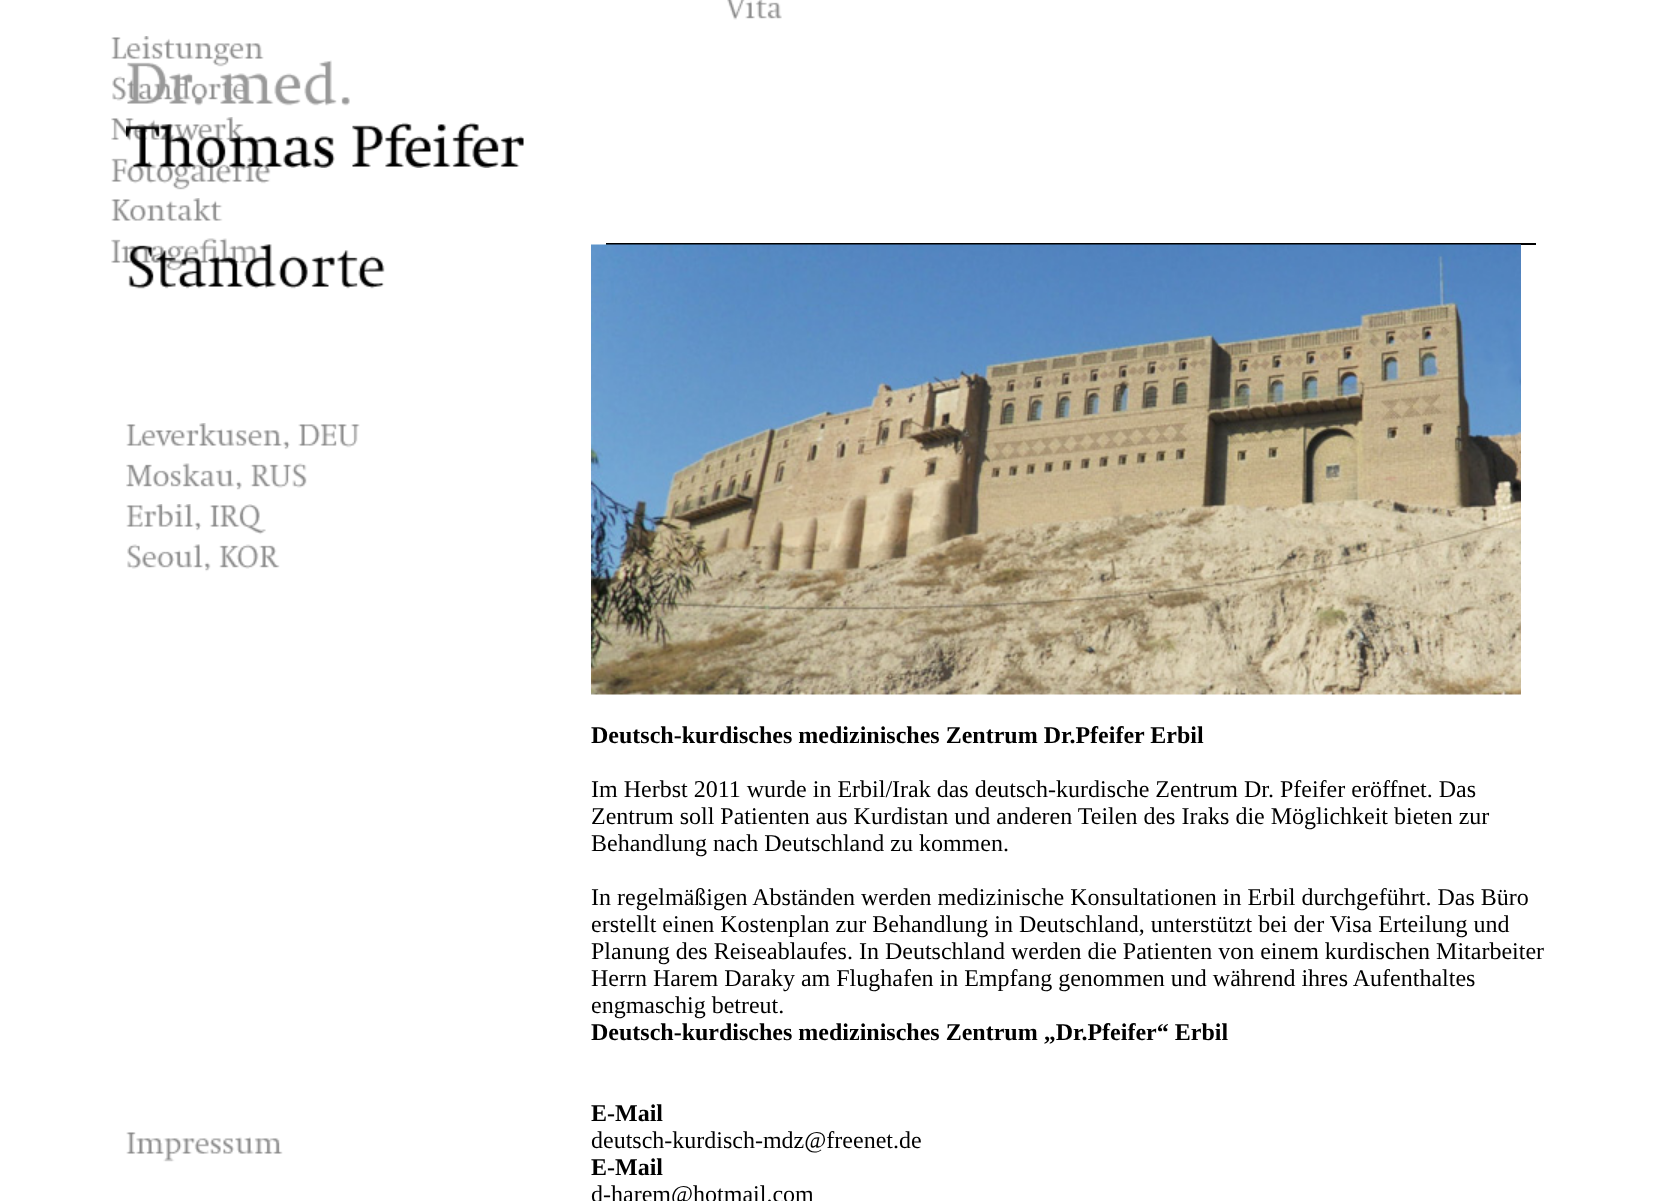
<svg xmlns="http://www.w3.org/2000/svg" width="1662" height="1201">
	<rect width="100%" height="100%" fill="#FFFFFF" />
	<image x="727" y="0" width="55" height="20" href="assets/img1.png" />
	<image x="111" y="36" width="153" height="31" href="assets/img2.png" />
	<image x="112" y="76" width="133" height="25" href="assets/img4.png" />
	<image x="111" y="117" width="134" height="25" href="assets/img5.png" />
	<image x="111" y="157" width="160" height="33" href="assets/img6.png" />
	<image x="126" y="60" width="398" height="108" href="assets/img3.png" />
	<image x="111" y="198" width="112" height="23" href="assets/img7.png" />
	<image x="111" y="238" width="149" height="33" href="assets/img8.png" />
	<image x="126" y="1132" width="157" height="30" href="assets/img9.png" />
	<image x="128" y="244" width="257" height="45" href="assets/img10.png" />
	<image x="126" y="423" width="234" height="27" href="assets/img11.png" />
	<image x="126" y="463" width="181" height="27" href="assets/img12.png" />
	<image x="126" y="504" width="140" height="31" href="assets/img13.png" />
	<image x="127" y="544" width="153" height="28" href="assets/img14.png" />
	<rect x="606" y="243" width="930" height="2" fill="#000000" />
	<image x="591" y="244" width="930" height="451" href="assets/img15.png" />
	<text x="591" y="743" font-family="Liberation Serif" font-size="24" font-weight="700" fill="#000000">Deutsch-kurdisches medizinisches Zentrum Dr.Pfeifer Erbil</text>
	<g font-family="Liberation Serif" font-size="24" fill="#000000">
		<text x="591" y="797">Im Herbst 2011 wurde in Erbil/Irak das deutsch-kurdische Zentrum Dr. Pfeifer eröffnet. Das</text>
		<text x="591" y="824">Zentrum soll Patienten aus Kurdistan und anderen Teilen des Iraks die Möglichkeit bieten zur</text>
		<text x="591" y="851">Behandlung nach Deutschland zu kommen.</text>
		<text x="591" y="905">In regelmäßigen Abständen werden medizinische Konsultationen in Erbil durchgeführt. Das Büro</text>
		<text x="591" y="932">erstellt einen Kostenplan zur Behandlung in Deutschland, unterstützt bei der Visa Erteilung und</text>
		<text x="591" y="959">Planung des Reiseablaufes. In Deutschland werden die Patienten von einem kurdischen Mitarbeiter</text>
		<text x="591" y="986">Herrn Harem Daraky am Flughafen in Empfang genommen und während ihres Aufenthaltes</text>
		<text x="591" y="1013">engmaschig betreut.</text>
	</g>
	<g font-family="Liberation Serif" font-size="24" font-weight="700" fill="#000000">
		<text x="591" y="1040">Deutsch-kurdisches medizinisches Zentrum „Dr.Pfeifer“ Erbil</text>
		<text x="591" y="1121">E-Mail</text>
	</g>
	<text x="591" y="1148" font-family="Liberation Serif" font-size="24" fill="#000000">deutsch-kurdisch-mdz@freenet.de</text>
	<text x="591" y="1175" font-family="Liberation Serif" font-size="24" font-weight="700" fill="#000000">E-Mail</text>
	<text x="591" y="1202" font-family="Liberation Serif" font-size="24" fill="#000000">d-harem@hotmail.com</text>
</svg>
